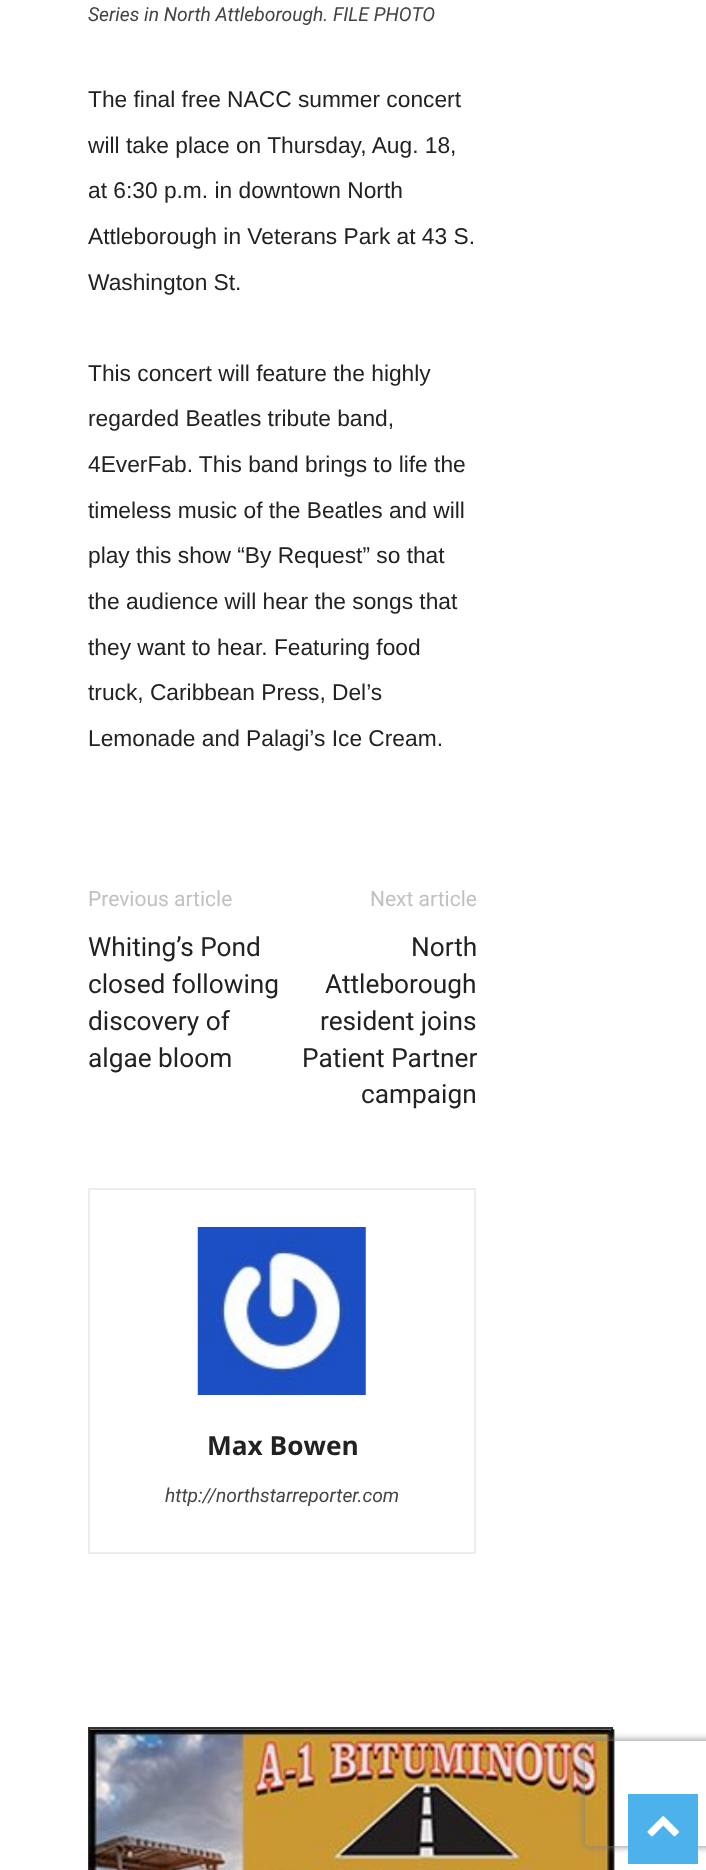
<svg xmlns="http://www.w3.org/2000/svg" width="706" height="1870">
	<defs>
		<clipPath id="clip1"><path d="M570 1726H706V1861H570ZM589 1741H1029C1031 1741 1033 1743 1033 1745V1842C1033 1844 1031 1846 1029 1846H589C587 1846 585 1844 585 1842V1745C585 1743 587 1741 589 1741Z" clip-rule="evenodd" /></clipPath>
	</defs>
	<rect width="100%" height="100%" fill="#FFFFFF" />
	<text x="88" y="21" font-family="Roboto" font-size="19.25" font-style="italic" fill="#444444">Series in North Attleborough. FILE PHOTO</text>
	<g font-family="Liberation Sans" font-size="22.75" fill="#222222">
		<text x="88" y="107">The final free NACC summer concert</text>
		<text x="88" y="153">will take place on Thursday, Aug. 18,</text>
		<text x="88" y="198">at 6:30 p.m. in downtown North</text>
		<text x="88" y="244">Attleborough in Veterans Park at 43 S.</text>
		<text x="88" y="290">Washington St.</text>
		<text x="88" y="381">This concert will feature the highly</text>
		<text x="88" y="426">regarded Beatles tribute band,</text>
		<text x="88" y="472">4EverFab. This band brings to life the</text>
		<text x="88" y="518">timeless music of the Beatles and will</text>
		<text x="88" y="563">play this show “By Request” so that</text>
		<text x="88" y="609">the audience will hear the songs that</text>
		<text x="88" y="655">they want to hear. Featuring food</text>
		<text x="88" y="700">truck, Caribbean Press, Del’s</text>
		<text x="88" y="746">Lemonade and Palagi’s Ice Cream.</text>
	</g>
	<text x="88" y="906" font-family="Roboto" font-size="21" fill="#C1C1C1">Previous article</text>
	<g font-family="Roboto" font-size="26.25" fill="#222222">
		<text x="88" y="956">Whiting’s Pond</text>
		<text x="88" y="993">closed following</text>
		<text x="88" y="1030">discovery of</text>
		<text x="88" y="1067">algae bloom</text>
	</g>
	<text x="370" y="906" font-family="Roboto" font-size="21" fill="#C1C1C1">Next article</text>
	<g font-family="Roboto" font-size="26.25" fill="#222222">
		<text x="411" y="956">North</text>
		<text x="325" y="993">Attleborough</text>
		<text x="320" y="1030">resident joins</text>
		<text x="302" y="1067">Patient Partner</text>
		<text x="361" y="1103">campaign</text>
	</g>
	<rect x="89" y="1189" width="386" height="364" fill="none" stroke="#EDEDED" stroke-width="2" />
	<image x="197" y="1227" width="169" height="168" href="assets/img1.png" />
	<text x="207" y="1455" font-family="Open Sans" font-size="26.25" font-weight="700" fill="#222222">Max Bowen</text>
	<text x="165" y="1502" font-family="Roboto" font-size="19.25" font-style="italic" fill="#444444">http://northstarreporter.com</text>
	<rect x="89" y="1728" width="523" height="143" fill="none" stroke="#333333" stroke-width="2" />
	<image x="89" y="1728" width="526" height="142" href="assets/img2.png" />
	<g clip-path="url(#clip1)">
		<rect x="585" y="1741" width="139" height="105" rx="4" fill="#808080" filter="blur(4.5px)" />
	</g>
	<rect x="628" y="1794" width="70" height="70" fill="#4DB2EC" />
	<image x="647" y="1816" width="32" height="21" href="assets/img3.png" />
</svg>
